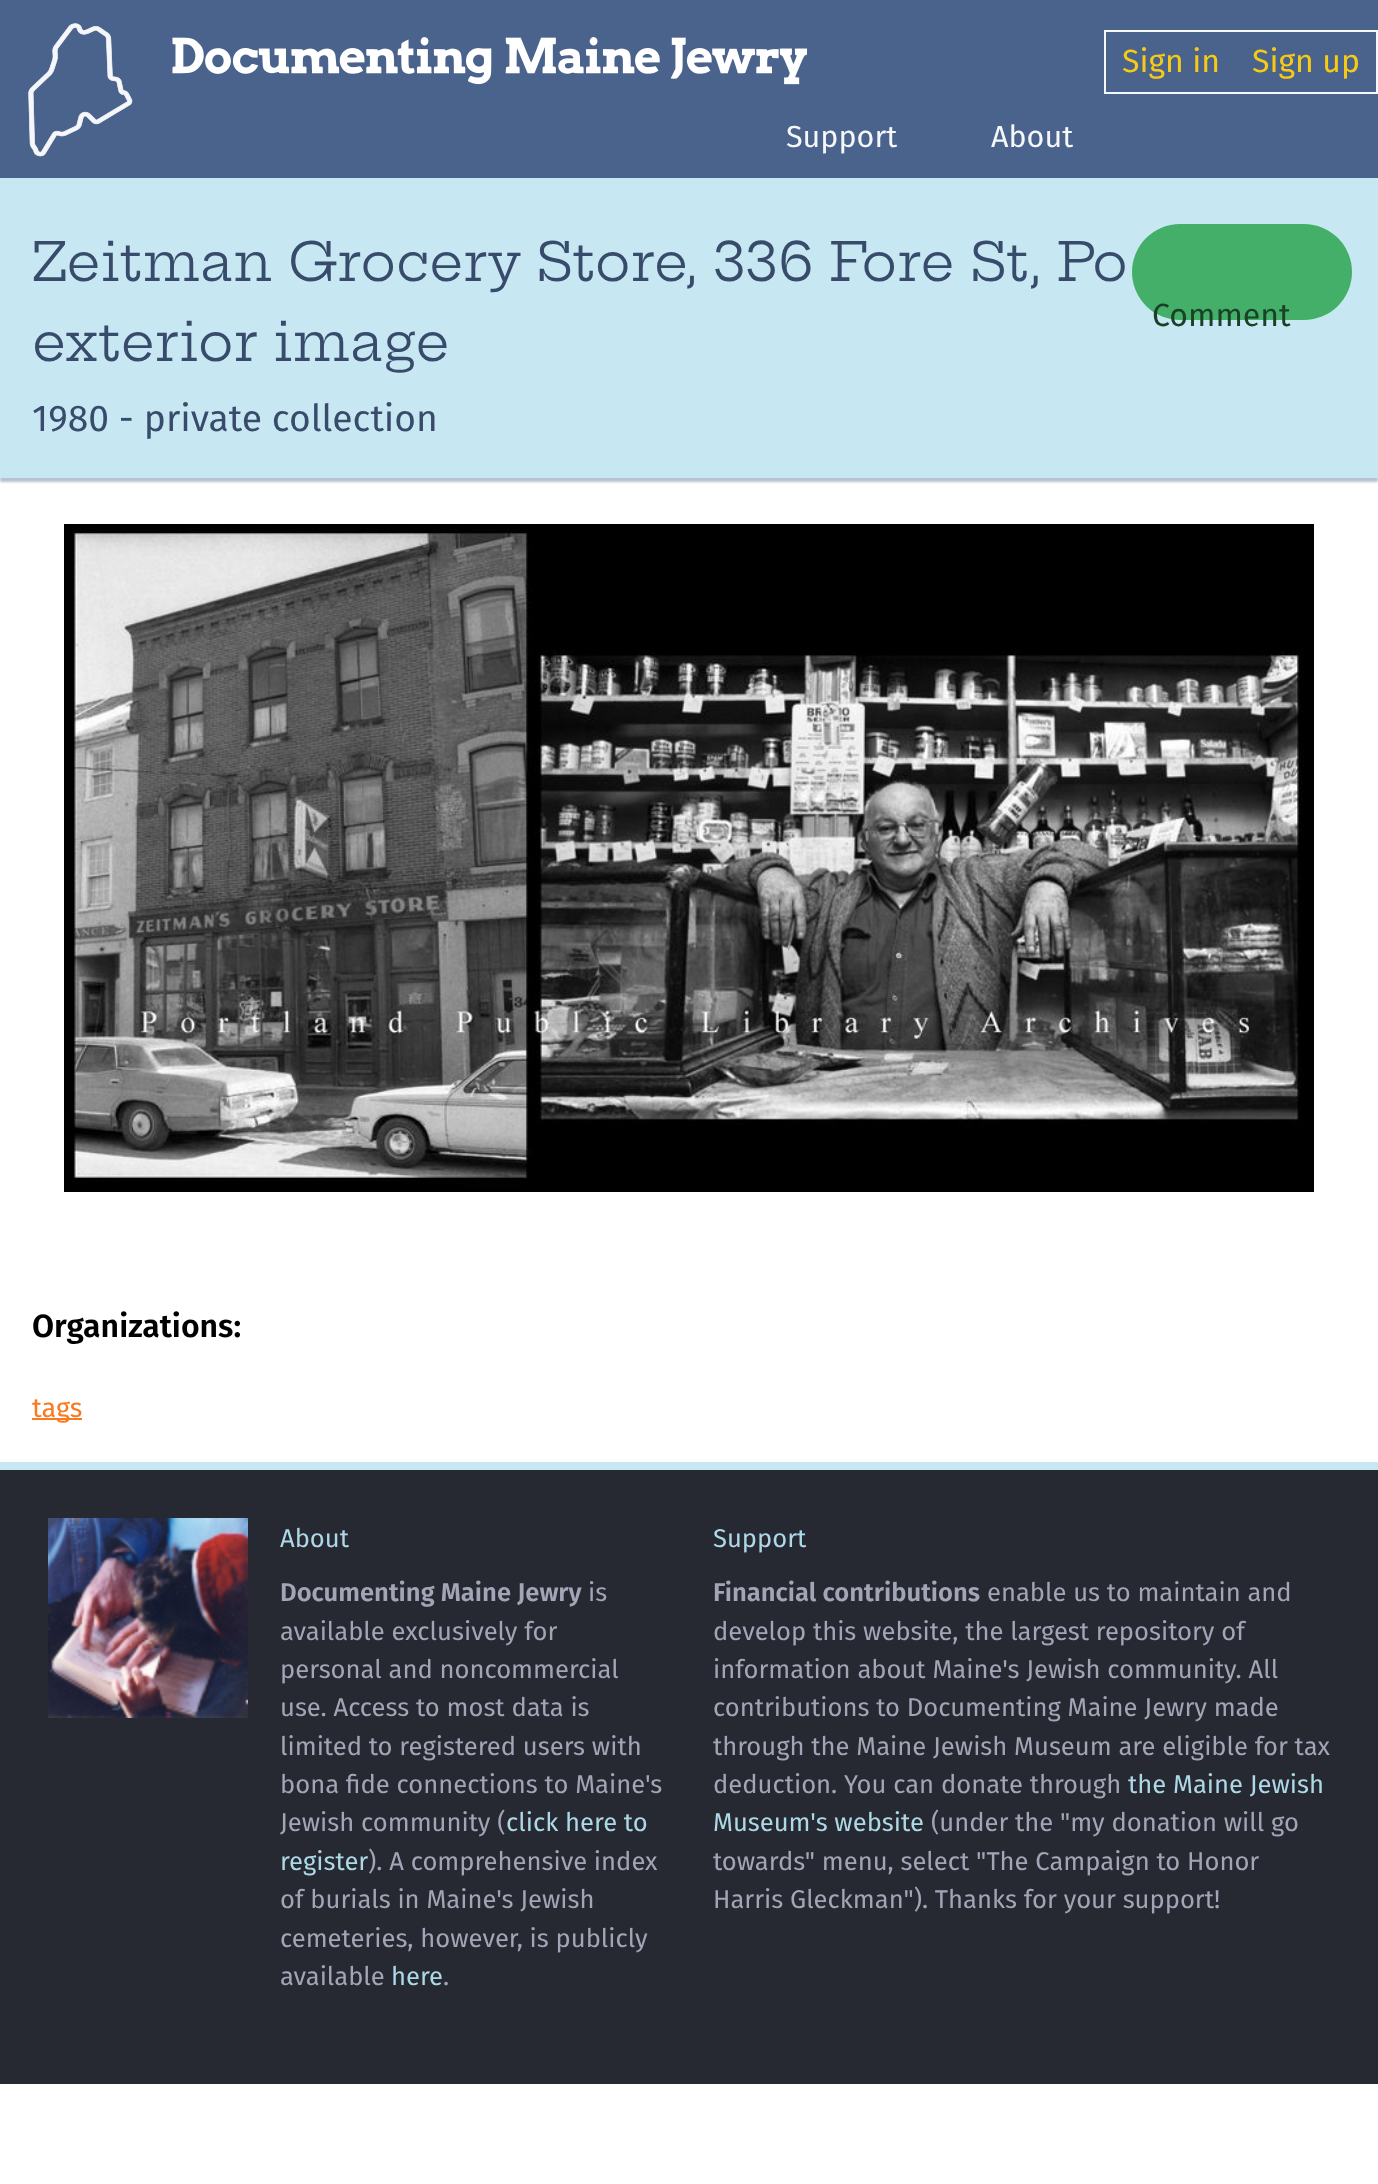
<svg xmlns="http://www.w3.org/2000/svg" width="1378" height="2184">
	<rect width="100%" height="100%" fill="#FFFFFF" />
	<rect x="0" y="0" width="1378" height="178" fill="#4A638C" />
	<image x="28" y="23" width="105" height="134" href="assets/img1.png" />
	<image x="172" y="37" width="636" height="48" href="assets/img2.png" />
	<rect x="1105" y="31" width="272" height="62" fill="none" stroke="#F5F7FA" stroke-width="2" />
	<g font-family="Fira Sans" font-size="32" fill="#F7CB15">
		<text x="1122" y="72">Sign in</text>
		<text x="1252" y="72">Sign up</text>
	</g>
	<g font-family="Fira Sans" font-size="30.5" fill="#F5F7FA">
		<text x="786" y="147">Support</text>
		<text x="991" y="147">About</text>
	</g>
	<rect x="0" y="182" width="1378" height="300" fill="#4A638C" fill-opacity="0.4" filter="blur(1px)" />
	<rect x="0" y="178" width="1378" height="300" fill="#C7E8F3" />
	<g font-family="Hepta Slab" font-size="53.3" fill="#384B6B">
		<text x="32" y="281">Zeitman Grocery Store, 336 Fore St, Po</text>
		<text x="32" y="361">exterior image</text>
	</g>
	<text x="32" y="431" font-family="Fira Sans" font-size="37.25" fill="#384B6B">1980 - private collection</text>
	<image x="64" y="524" width="1250" height="668" href="assets/img3.png" />
	<text x="32" y="1337" font-family="Fira Sans" font-size="32" font-weight="600" fill="#000000">Organizations:</text>
	<rect x="32" y="1418" width="50" height="2" fill="#FA7921" />
	<text x="32" y="1417" font-family="Fira Sans" font-size="27" fill="#FA7921">tags</text>
	<rect x="1132" y="224" width="220" height="96" rx="48" fill="#44AF69" />
	<text x="1152" y="326" font-family="Fira Sans" font-size="32" fill="#194127">Comment</text>
	<rect x="0" y="1470" width="1378" height="614" fill="#272932" />
	<rect x="0" y="1462" width="1378" height="8" fill="#C7E8F3" />
	<image x="48" y="1518" width="200" height="200" href="assets/img4.png" />
	<text x="280" y="1547" font-family="Fira Sans" font-size="25.6" fill="#ADD8E6">About</text>
	<text x="280" y="1601" font-family="Fira Sans" font-size="25.6" font-weight="600" fill="#A2A5B6">Documenting Maine Jewry</text>
	<g font-family="Fira Sans" font-size="25.6" fill="#A2A5B6">
		<text x="588" y="1601">is</text>
		<text x="280" y="1640">available exclusively for</text>
		<text x="280" y="1678">personal and noncommercial</text>
		<text x="280" y="1716">use. Access to most data is</text>
		<text x="280" y="1755">limited to registered users with</text>
		<text x="280" y="1793">bona fide connections to Maine's</text>
		<text x="280" y="1831">Jewish community (</text>
	</g>
	<g font-family="Fira Sans" font-size="25.6" fill="#ADD8E6">
		<text x="506" y="1831">click here to</text>
		<text x="280" y="1870">register</text>
	</g>
	<g font-family="Fira Sans" font-size="25.6" fill="#A2A5B6">
		<text x="368" y="1870">). A comprehensive index</text>
		<text x="280" y="1908">of burials in Maine's Jewish</text>
		<text x="280" y="1947">cemeteries, however, is publicly</text>
		<text x="280" y="1985">available</text>
	</g>
	<text x="391" y="1985" font-family="Fira Sans" font-size="25.6" fill="#ADD8E6">here</text>
	<text x="443" y="1985" font-family="Fira Sans" font-size="25.6" fill="#A2A5B6">.</text>
	<text x="713" y="1547" font-family="Fira Sans" font-size="25.6" fill="#ADD8E6">Support</text>
	<text x="713" y="1601" font-family="Fira Sans" font-size="25.6" font-weight="600" fill="#A2A5B6">Financial contributions</text>
	<g font-family="Fira Sans" font-size="25.6" fill="#A2A5B6">
		<text x="987" y="1601">enable us to maintain and</text>
		<text x="713" y="1640">develop this website, the largest repository of</text>
		<text x="713" y="1678">information about Maine's Jewish community. All</text>
		<text x="713" y="1716">contributions to Documenting Maine Jewry made</text>
		<text x="713" y="1755">through the Maine Jewish Museum are eligible for tax</text>
		<text x="713" y="1793">deduction. You can donate through</text>
	</g>
	<g font-family="Fira Sans" font-size="25.6" fill="#ADD8E6">
		<text x="1128" y="1793">the Maine Jewish</text>
		<text x="713" y="1831">Museum's website</text>
	</g>
	<g font-family="Fira Sans" font-size="25.6" fill="#A2A5B6">
		<text x="931" y="1831">(under the "my donation will go</text>
		<text x="713" y="1870">towards" menu, select "The Campaign to Honor</text>
		<text x="713" y="1908">Harris Gleckman"). Thanks for your support!</text>
	</g>
</svg>
